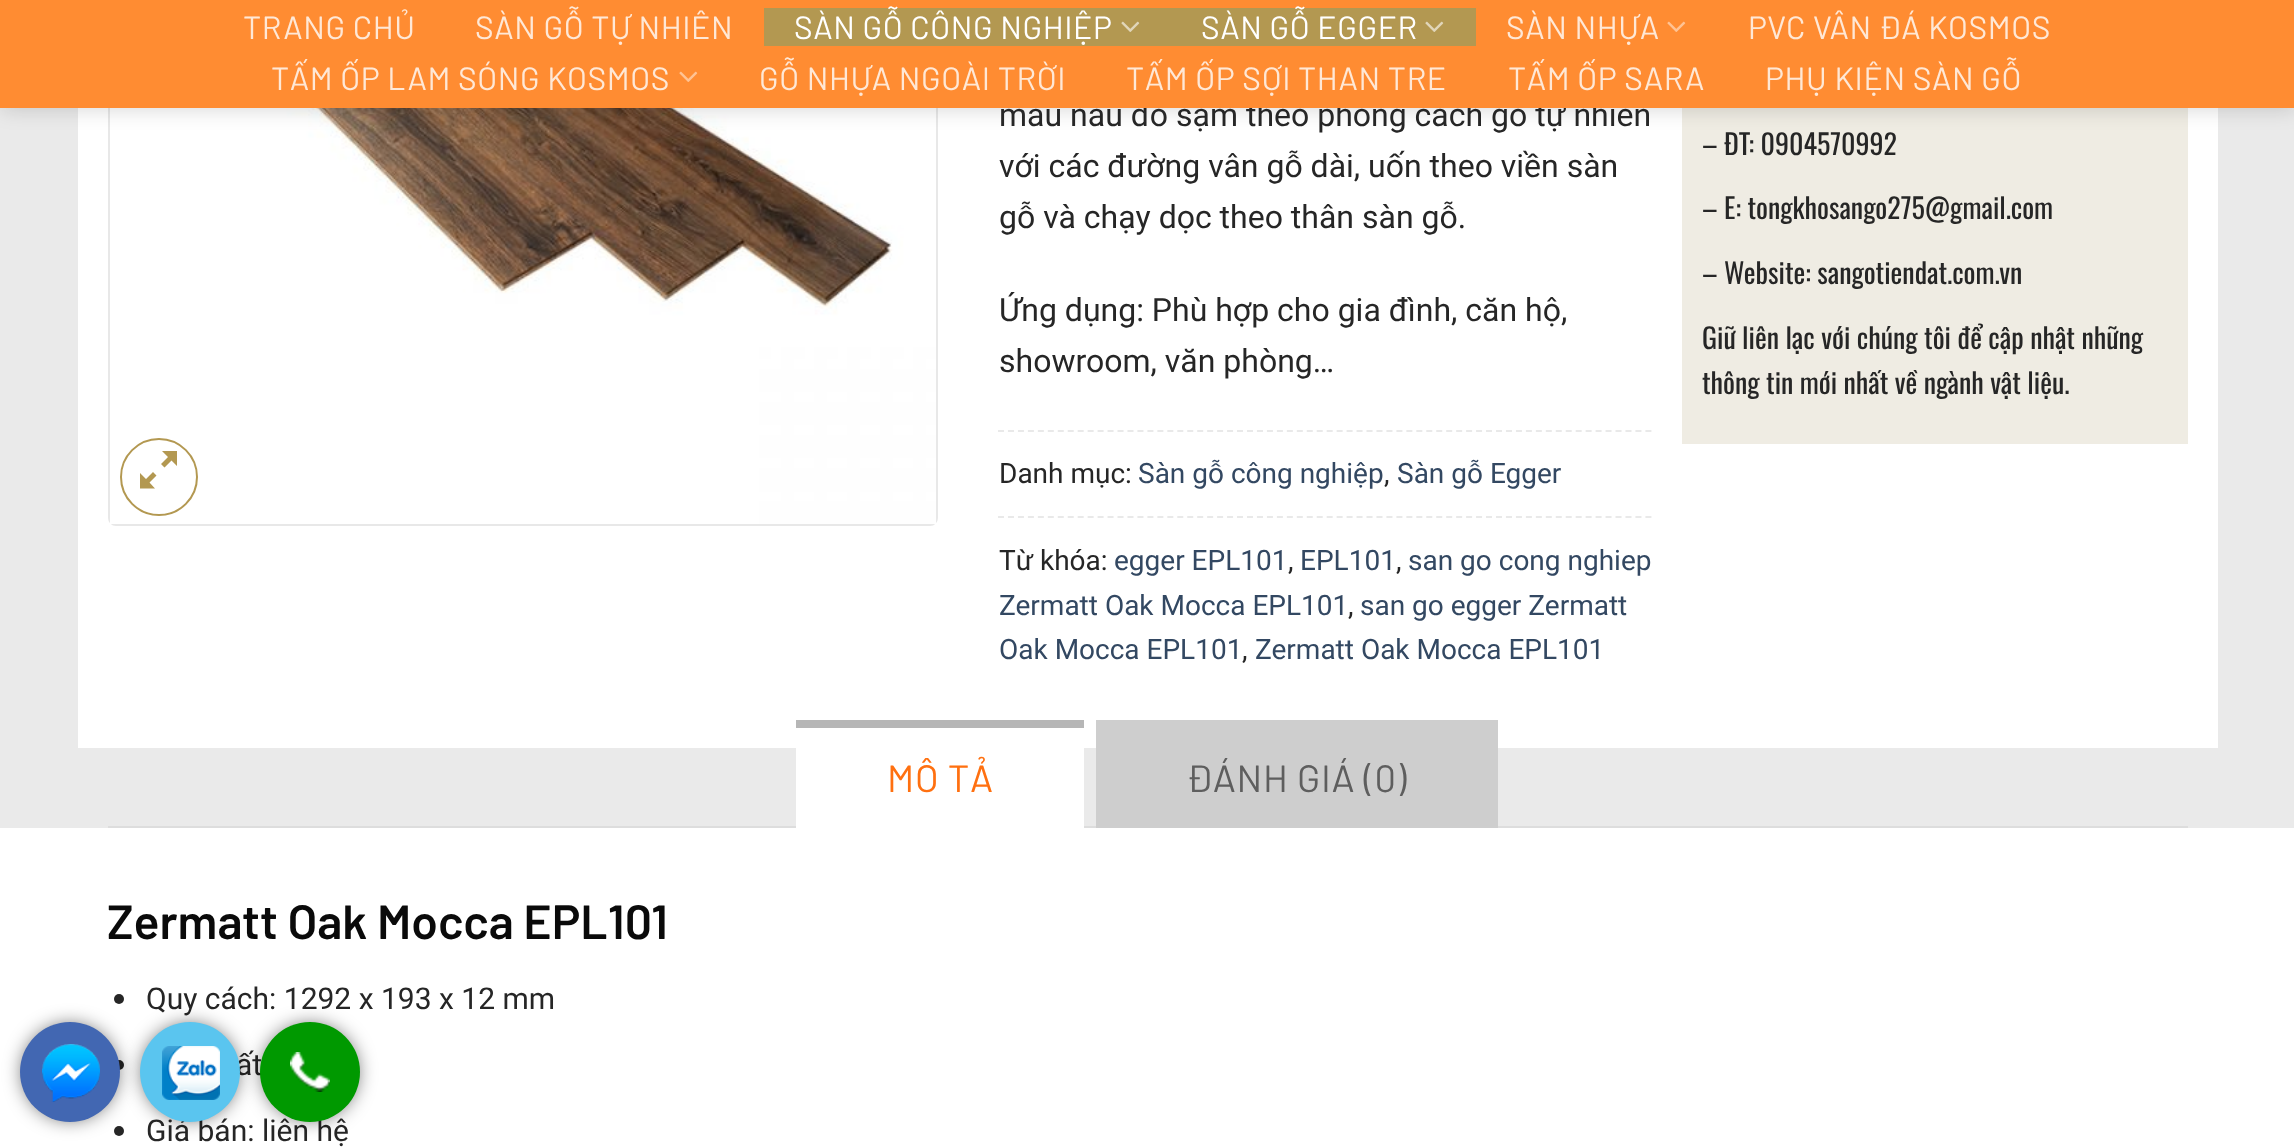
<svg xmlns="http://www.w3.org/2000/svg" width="2294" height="1147">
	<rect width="100%" height="100%" fill="#FFFFFF" />
	<rect x="0" y="108" width="2294" height="720" fill="#EAEAEA" />
	<rect x="78" y="108" width="2140" height="640" fill="#FFFFFF" />
	<rect x="109" y="-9" width="828" height="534" rx="7" fill="none" stroke="#E8E8E8" stroke-width="2" />
	<image x="110" y="108" width="826" height="416" href="assets/img3.png" />
	<rect x="1682" y="108" width="506" height="336" fill="#EFECE3" />
	<rect x="2" y="2" width="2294" height="108" fill="#000000" fill-opacity="0.15" filter="blur(10px)" />
	<text x="999" y="126" font-family="Roboto" font-size="32" fill="#262626">màu nâu đỏ sậm theo phong cách gỗ tự nhiên</text>
	<rect x="0" y="0" width="2294" height="108" fill="#FF8C32" />
	<g font-family="Barlow" font-size="32" letter-spacing="0.6" fill="#FFE8D6">
		<text x="243" y="39">TRANG CHỦ</text>
		<text x="475" y="39">SÀN GỖ TỰ NHIÊN</text>
	</g>
	<rect x="764" y="8" width="712" height="38" fill="#B39851" />
	<text x="794" y="39" font-family="Barlow" font-size="32" letter-spacing="0.6" fill="#FFFFFF">SÀN GỖ CÔNG NGHIỆP</text>
	<image x="1121" y="21" width="19" height="11" href="assets/img1.png" />
	<text x="1201" y="39" font-family="Barlow" font-size="32" letter-spacing="0.6" fill="#FFFFFF">SÀN GỖ EGGER</text>
	<image x="1425" y="21" width="19" height="11" href="assets/img1.png" />
	<text x="1506" y="39" font-family="Barlow" font-size="32" letter-spacing="0.6" fill="#FFE8D6">SÀN NHỰA</text>
	<image x="1667" y="21" width="19" height="11" href="assets/img2.png" />
	<g font-family="Barlow" font-size="32" letter-spacing="0.6" fill="#FFE8D6">
		<text x="1748" y="39">PVC VÂN ĐÁ KOSMOS</text>
		<text x="271" y="90">TẤM ỐP LAM SÓNG KOSMOS</text>
	</g>
	<image x="679" y="71" width="19" height="11" href="assets/img2.png" />
	<g font-family="Barlow" font-size="32" letter-spacing="0.6" fill="#FFE8D6">
		<text x="759" y="90">GỖ NHỰA NGOÀI TRỜI</text>
		<text x="1126" y="90">TẤM ỐP SỢI THAN TRE</text>
		<text x="1508" y="90">TẤM ỐP SARA</text>
		<text x="1765" y="90">PHỤ KIỆN SÀN GỖ</text>
	</g>
	<circle cx="159" cy="477" r="38" fill="none" stroke="#B39851" stroke-width="2" />
	<path d="M177 451V466L171.5 460.5L164.5 467.5L161 464L168 457L162 451ZM156.5 475.5L149.5 482.5L155 488.5H140V473L146 479L153 472Z" fill="#B39851" />
	<g font-family="Roboto" font-size="32" fill="#262626">
		<text x="999" y="177">với các đường vân gỗ dài, uốn theo viền sàn</text>
		<text x="999" y="228">gỗ và chạy dọc theo thân sàn gỗ.</text>
		<text x="999" y="321">Ứng dụng: Phù hợp cho gia đình, căn hộ,</text>
		<text x="999" y="372">showroom, văn phòng…</text>
	</g>
	<path d="M998 431H1652" fill="none" stroke="#E9E9E9" stroke-width="2" stroke-dasharray="6 3.96" />
	<text x="999" y="483" font-family="Roboto" font-size="28" fill="#262626">Danh mục:</text>
	<text x="1138" y="483" font-family="Roboto" font-size="28" fill="#334862">Sàn gỗ công nghiệp</text>
	<text x="1384" y="483" font-family="Roboto" font-size="28" fill="#262626">,</text>
	<text x="1397" y="483" font-family="Roboto" font-size="28" fill="#334862">Sàn gỗ Egger</text>
	<path d="M998 517H1652" fill="none" stroke="#E9E9E9" stroke-width="2" stroke-dasharray="6 3.96" />
	<text x="999" y="570" font-family="Roboto" font-size="28" fill="#262626">Từ khóa:</text>
	<text x="1114" y="570" font-family="Roboto" font-size="28" fill="#334862">egger EPL101</text>
	<text x="1288" y="570" font-family="Roboto" font-size="28" fill="#262626">,</text>
	<text x="1300" y="570" font-family="Roboto" font-size="28" fill="#334862">EPL101</text>
	<text x="1396" y="570" font-family="Roboto" font-size="28" fill="#262626">,</text>
	<g font-family="Roboto" font-size="28" fill="#334862">
		<text x="1408" y="570">san go cong nghiep</text>
		<text x="999" y="615">Zermatt Oak Mocca EPL101</text>
	</g>
	<text x="1348" y="615" font-family="Roboto" font-size="28" fill="#262626">,</text>
	<g font-family="Roboto" font-size="28" fill="#334862">
		<text x="1360" y="615">san go egger Zermatt</text>
		<text x="999" y="659">Oak Mocca EPL101</text>
	</g>
	<text x="1242" y="659" font-family="Roboto" font-size="28" fill="#262626">,</text>
	<text x="1255" y="659" font-family="Roboto" font-size="28" fill="#334862">Zermatt Oak Mocca EPL101</text>
	<g font-family="Oswald" font-size="28" fill="#262626">
		<text x="1702" y="155">– ĐT: 0904570992</text>
		<text x="1702" y="219">– E: tongkhosango275@gmail.com</text>
		<text x="1702" y="284">– Website: sangotiendat.com.vn</text>
		<text x="1702" y="349">Giữ liên lạc với chúng tôi để cập nhật những</text>
		<text x="1702" y="394">thông tin mới nhất về ngành vật liệu.</text>
	</g>
	<rect x="108" y="826" width="2080" height="2" fill="#DDDDDD" />
	<rect x="796" y="748" width="288" height="80" fill="#FFFFFF" />
	<rect x="796" y="720" width="288" height="8" fill="#B6B6B6" />
	<text x="887" y="792" font-family="Barlow" font-size="38" letter-spacing="0.75" fill="#FF7010">MÔ TẢ</text>
	<rect x="1096" y="720" width="402" height="108" fill="#CECECE" />
	<text x="1186" y="792" font-family="Barlow" font-size="38" letter-spacing="0.75" fill="#5E5E5E">ĐÁNH GIÁ (0)</text>
	<text x="107" y="939" font-family="Barlow" font-size="48" font-weight="600" fill="#0A0A0A">Zermatt Oak Mocca EPL101</text>
	<circle cx="119" cy="999" r="5" fill="#262626" />
	<text x="146" y="1009" font-family="Roboto" font-size="30" fill="#262626">Quy cách: 1292 x 193 x 12 mm</text>
	<circle cx="119" cy="1065" r="5" fill="#262626" />
	<text x="236" y="1075" font-family="Roboto" font-size="30" fill="#262626">ất</text>
	<circle cx="119" cy="1131" r="5" fill="#262626" />
	<text x="146" y="1141" font-family="Roboto" font-size="30" fill="#262626">Giá bán: liên hệ</text>
	<rect x="24" y="1026" width="92" height="92" rx="46" fill="#000000" fill-opacity="0.7" filter="blur(10px)" />
	<circle cx="70" cy="1072" r="50" fill="#4267B2" />
	<image x="42" y="1044" width="58" height="58" href="assets/img4.png" />
	<rect x="144" y="1026" width="92" height="92" rx="46" fill="#000000" fill-opacity="0.7" filter="blur(10px)" />
	<circle cx="190" cy="1072" r="50" fill="#5AC5EF" />
	<image x="162" y="1046" width="58" height="54" href="assets/img5.png" />
	<rect x="264" y="1026" width="92" height="92" rx="46" fill="#000000" fill-opacity="0.7" filter="blur(10px)" />
	<circle cx="310" cy="1072" r="50" fill="#009900" />
	<image x="290" y="1052" width="40" height="40" href="assets/img6.png" />
</svg>
